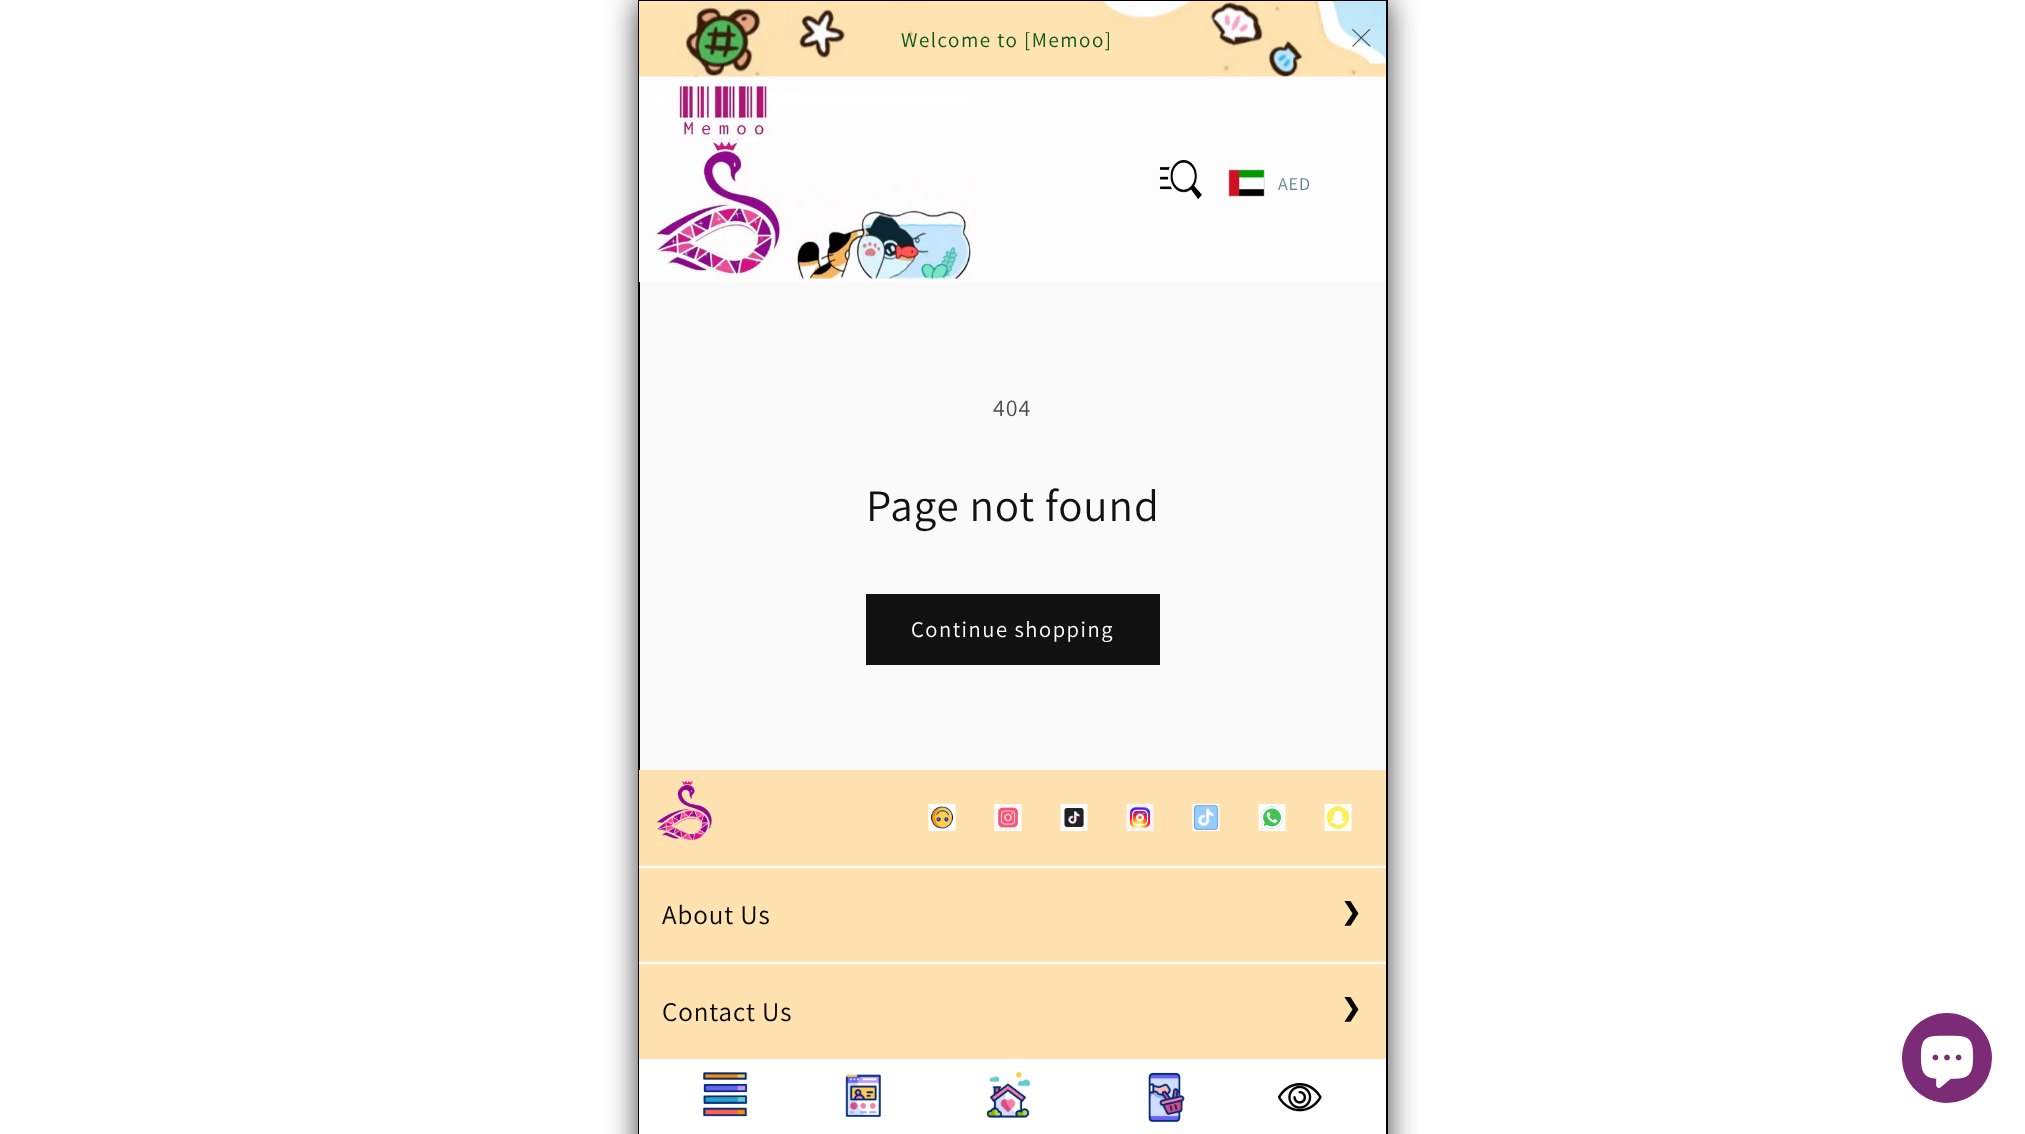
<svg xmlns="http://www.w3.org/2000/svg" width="2025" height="1134">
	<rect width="100%" height="100%" fill="#FFFFFF" />
	<rect x="638" y="0" width="750" height="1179" fill="#000000" fill-opacity="0.75" filter="blur(15px)" />
	<rect x="640" y="282" width="746" height="488" fill="#FAFAFA" />
	<rect x="639" y="1" width="748" height="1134" fill="none" stroke="#000000" stroke-width="2" />
	<rect x="639" y="2" width="747" height="75" fill="#FFFFFF" />
	<image x="639" y="1" width="747" height="76" href="assets/img1.png" />
	<text x="901" y="47" font-family="Assistant" font-size="21" letter-spacing="1.5" fill="#095419">Welcome to [Memoo]</text>
	<image x="1352" y="29" width="19" height="18" href="assets/img2.png" />
	<rect x="639" y="77" width="747" height="205" fill="#FDFDFD" />
	<image x="654" y="86" width="321" height="193" href="assets/img3.png" />
	<image x="1159" y="160" width="43" height="40" href="assets/img4.png" />
	<image x="1228" y="169" width="37" height="28" href="assets/img5.png" />
	<text x="1278" y="190" font-family="Assistant" font-size="18" letter-spacing="0.9" fill="#5B8583">AED</text>
	<text x="993" y="416" font-family="Assistant" font-size="24" letter-spacing="0.9" fill="#4C4C4C">404</text>
	<text x="866" y="521" font-family="Assistant" font-size="45" letter-spacing="0.9" fill="#121212">Page not found</text>
	<rect x="866" y="594" width="294" height="71" fill="#121212" />
	<text x="911" y="637" font-family="Assistant" font-size="22.5" letter-spacing="1.5" fill="#FFFFFF">Continue shopping</text>
	<rect x="639" y="770" width="747" height="289" fill="#FFE2B0" />
	<image x="656" y="779" width="56" height="62" href="assets/img6.png" />
	<image x="928" y="804" width="28" height="27" href="assets/img7.png" />
	<image x="994" y="804" width="28" height="27" href="assets/img8.png" />
	<image x="1060" y="804" width="28" height="27" href="assets/img9.png" />
	<image x="1126" y="804" width="28" height="27" href="assets/img10.png" />
	<image x="1192" y="804" width="28" height="27" href="assets/img11.png" />
	<image x="1258" y="804" width="28" height="27" href="assets/img12.png" />
	<image x="1324" y="804" width="28" height="27" href="assets/img13.png" />
	<rect x="639" y="866" width="747" height="2" fill="#FFFFFF" />
	<text x="662" y="924" font-family="Assistant" font-size="27" letter-spacing="0.9" fill="#080707">About Us</text>
	<text x="1341" y="920" font-family="DejaVu Sans" font-size="24" font-weight="700" letter-spacing="0.9" fill="#080707">❯</text>
	<rect x="639" y="962" width="747" height="2" fill="#FFFFFF" />
	<text x="662" y="1021" font-family="Assistant" font-size="27" letter-spacing="0.9" fill="#080707">Contact Us</text>
	<text x="1341" y="1016" font-family="DejaVu Sans" font-size="24" font-weight="700" letter-spacing="0.9" fill="#080707">❯</text>
	<rect x="639" y="1059" width="747" height="75" fill="#FFFFFF" />
	<image x="702" y="1072" width="46" height="45" href="assets/img14.png" />
	<image x="845" y="1074" width="36" height="43" href="assets/img15.png" />
	<image x="986" y="1071" width="45" height="47" href="assets/img16.png" />
	<image x="1148" y="1072" width="37" height="51" href="assets/img17.png" />
	<image x="1277" y="1083" width="45" height="29" href="assets/img18.png" />
	<circle cx="1947" cy="1058" r="45" fill="#7C2C77" />
	<image x="1920" y="1035" width="54" height="53" href="assets/img19.png" />
</svg>
